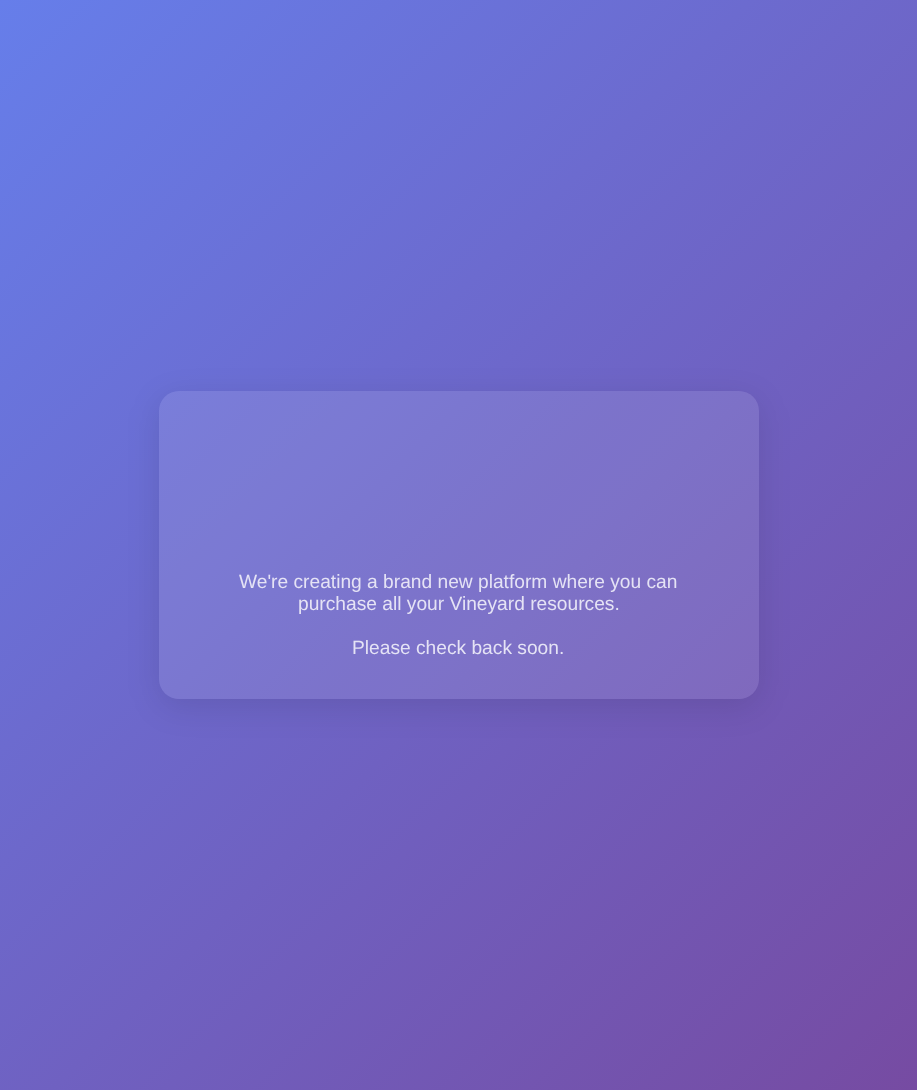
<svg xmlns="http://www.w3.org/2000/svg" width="917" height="1090">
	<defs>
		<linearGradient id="g1" gradientUnits="userSpaceOnUse" x1="-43" y1="43" x2="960" y2="1047"><stop offset="0" stop-color="#667EEA" /><stop offset="1" stop-color="#764BA2" /></linearGradient>
		<clipPath id="clip1"><path d="M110 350H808V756H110ZM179 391H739C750 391 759 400 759 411V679C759 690 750 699 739 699H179C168 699 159 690 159 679V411C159 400 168 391 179 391Z" clip-rule="evenodd" /></clipPath>
	</defs>
	<rect width="100%" height="100%" fill="#FFFFFF" />
	<rect x="0" y="0" width="917" height="1090" fill="url(#g1)" />
	<g clip-path="url(#clip1)">
		<rect x="159" y="399" width="600" height="308" rx="20" fill="#000000" fill-opacity="0.1" filter="blur(16px)" />
	</g>
	<rect x="159" y="391" width="600" height="308" rx="20" fill="#FFFFFF" fill-opacity="0.1" />
	<g font-family="Liberation Sans" font-size="19.2" fill="#E5E3F5">
		<text x="239" y="588">We're creating a brand new platform where you can</text>
		<text x="298" y="610">purchase all your Vineyard resources.</text>
		<text x="352" y="654">Please check back soon.</text>
	</g>
</svg>
